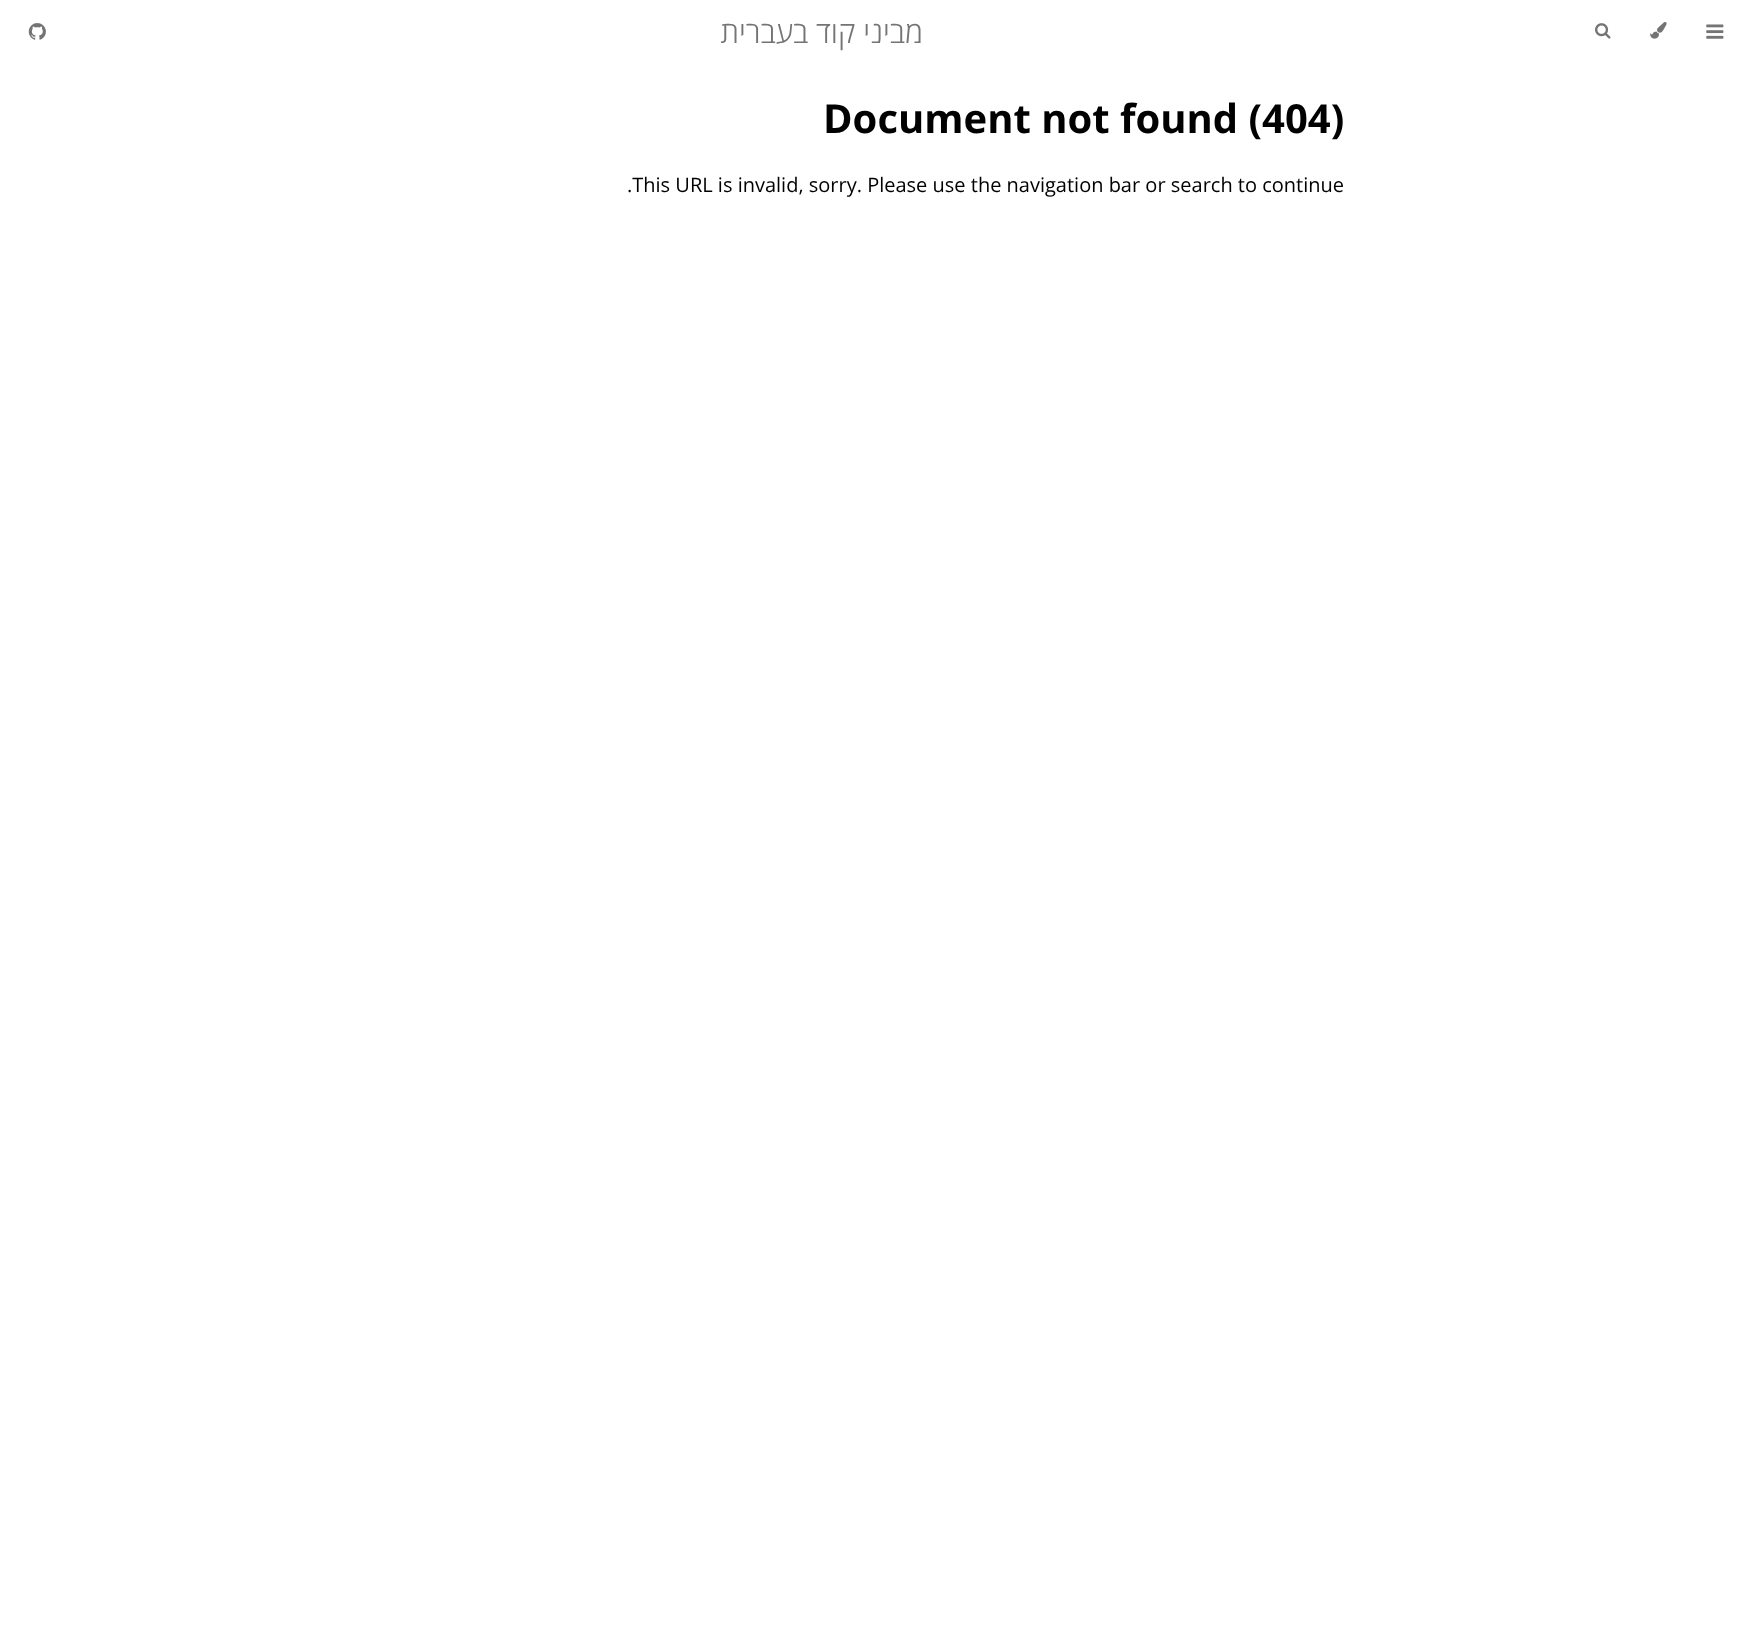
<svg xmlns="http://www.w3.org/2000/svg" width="1749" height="1644">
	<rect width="100%" height="100%" fill="#FFFFFF" />
	<image x="28" y="23" width="18" height="17" href="assets/img1.png" />
	<text x="923" y="43" font-family="Open Sans" font-size="30" font-weight="300" direction="rtl" fill="#747474">מביני קוד בעברית</text>
	<image x="1595" y="23" width="16" height="16" href="assets/img2.png" />
	<image x="1650" y="22" width="17" height="17" href="assets/img3.png" />
	<image x="1706" y="24" width="18" height="15" href="assets/img4.png" />
	<text x="823" y="133" font-family="Open Sans" font-size="40" font-weight="700" fill="#000000">Document not found (404)</text>
	<text x="627" y="192" font-family="Open Sans" font-size="20" fill="#000000">.This URL is invalid, sorry. Please use the navigation bar or search to continue</text>
</svg>
